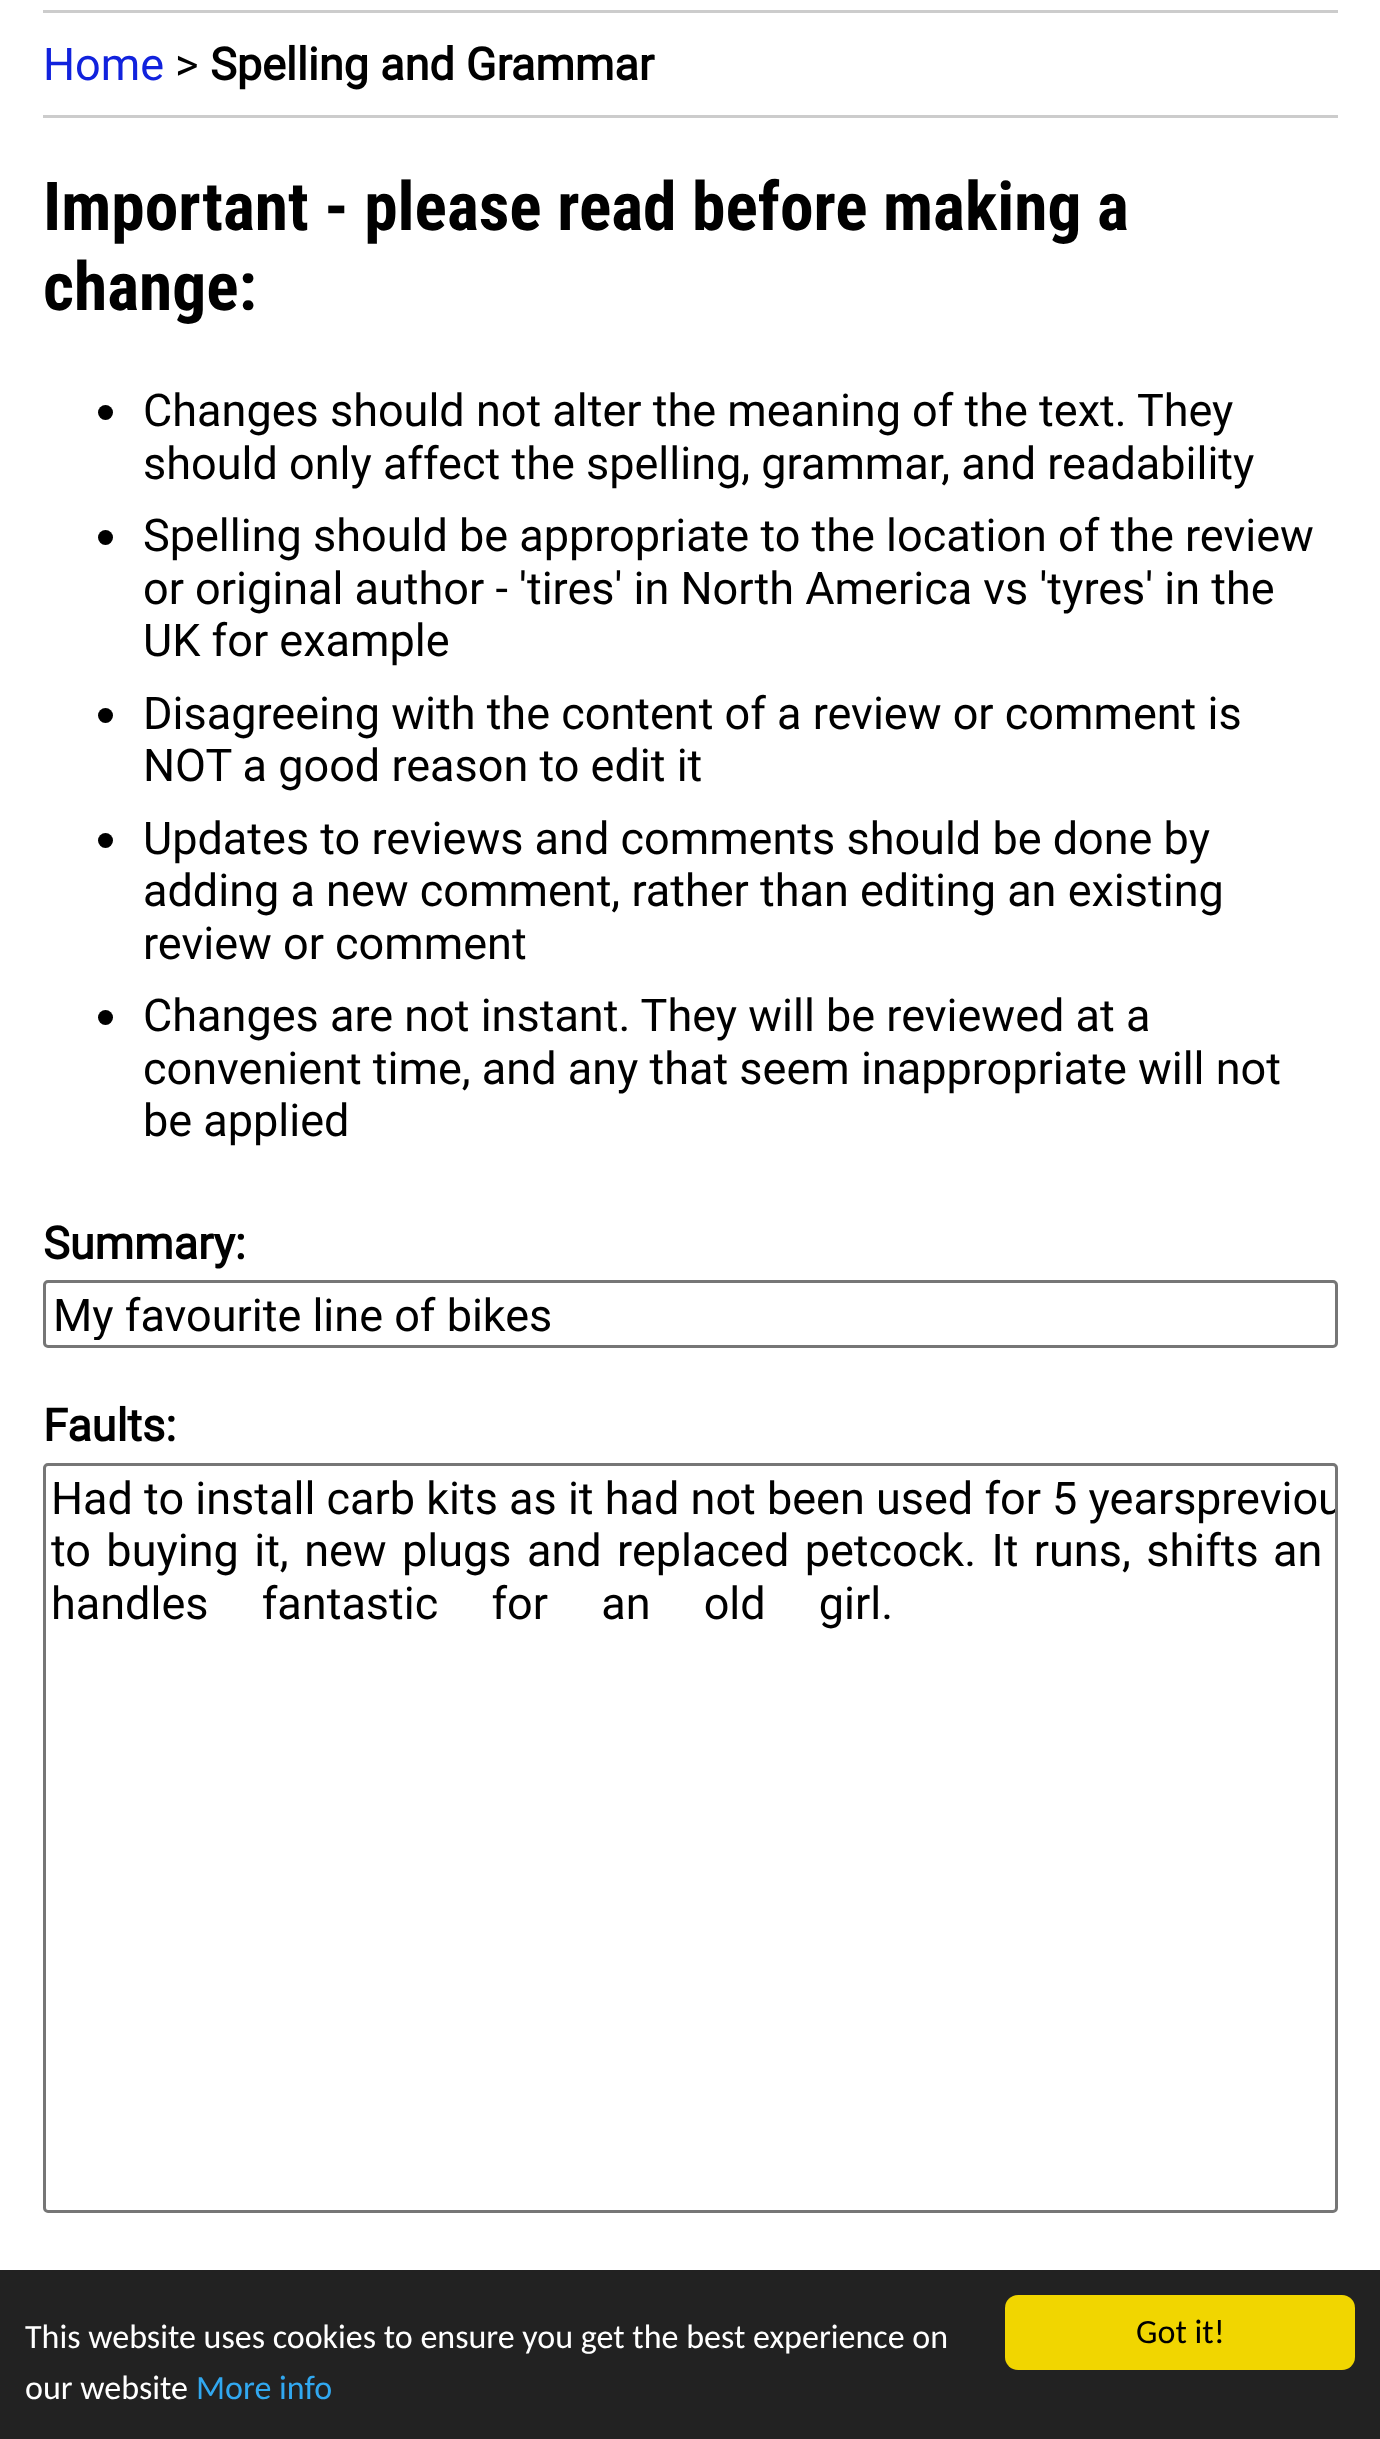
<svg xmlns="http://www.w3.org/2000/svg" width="1380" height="2439">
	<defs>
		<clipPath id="clip1"><rect x="53" y="1288" width="1275" height="52" /></clipPath>
		<clipPath id="clip2"><rect x="45" y="1465" width="1290" height="745" /></clipPath>
	</defs>
	<rect width="100%" height="100%" fill="#FFFFFF" />
	<rect x="43" y="10" width="1295" height="3" fill="#CCCCCC" />
	<rect x="43" y="115" width="1295" height="3" fill="#CCCCCC" />
	<text x="43" y="80" font-family="Roboto" font-size="45" fill="#1122DD">Home</text>
	<text x="175" y="80" font-family="Roboto" font-size="45" fill="#000000">&gt;</text>
	<text x="210" y="80" font-family="Roboto" font-size="45" font-weight="700" fill="#000000">Spelling and Grammar</text>
	<g font-family="Roboto Condensed" font-size="67.5" font-weight="700" fill="#000000">
		<text x="43" y="230">Important - please read before making a</text>
		<text x="43" y="310">change:</text>
	</g>
	<circle cx="105.5" cy="412.5" r="7.5" fill="#000000" />
	<g font-family="Roboto" font-size="45" fill="#000000">
		<text x="143" y="426">Changes should not alter the meaning of the text. They</text>
		<text x="143" y="479">should only affect the spelling, grammar, and readability</text>
	</g>
	<circle cx="105.5" cy="537.5" r="7.5" fill="#000000" />
	<g font-family="Roboto" font-size="45" fill="#000000">
		<text x="143" y="551">Spelling should be appropriate to the location of the review</text>
		<text x="143" y="604">or original author - 'tires' in North America vs 'tyres' in the</text>
		<text x="143" y="656">UK for example</text>
	</g>
	<circle cx="105.5" cy="715.5" r="7.5" fill="#000000" />
	<g font-family="Roboto" font-size="45" fill="#000000">
		<text x="143" y="729">Disagreeing with the content of a review or comment is</text>
		<text x="143" y="781">NOT a good reason to edit it</text>
	</g>
	<circle cx="105.5" cy="840.5" r="7.5" fill="#000000" />
	<g font-family="Roboto" font-size="45" fill="#000000">
		<text x="143" y="854">Updates to reviews and comments should be done by</text>
		<text x="143" y="906">adding a new comment, rather than editing an existing</text>
		<text x="143" y="959">review or comment</text>
	</g>
	<circle cx="105.5" cy="1017.5" r="7.5" fill="#000000" />
	<g font-family="Roboto" font-size="45" fill="#000000">
		<text x="143" y="1031">Changes are not instant. They will be reviewed at a</text>
		<text x="143" y="1084">convenient time, and any that seem inappropriate will not</text>
		<text x="143" y="1136">be applied</text>
	</g>
	<text x="43" y="1259" font-family="Roboto" font-size="45" font-weight="700" fill="#000000">Summary:</text>
	<rect x="44.5" y="1281.5" width="1292" height="65" rx="3.5" fill="none" stroke="#767676" stroke-width="3" />
	<g clip-path="url(#clip1)">
		<text x="53" y="1331" font-family="Roboto" font-size="45" fill="#000000">My favourite line of bikes</text>
	</g>
	<text x="43" y="1441" font-family="Roboto" font-size="45" font-weight="700" fill="#000000">Faults:</text>
	<rect x="44.5" y="1464.5" width="1292" height="747" rx="3.5" fill="none" stroke="#767676" stroke-width="3" />
	<text x="51" y="1514" font-family="Roboto" font-size="45" fill="#000000">Had to install carb kits as it had not been used for 5 years</text>
	<g clip-path="url(#clip2)">
		<text x="1196" y="1514" font-family="Roboto" font-size="45" fill="#000000">previou</text>
	</g>
	<g font-family="Roboto" font-size="45" fill="#000000">
		<text x="51" y="1566" word-spacing="4.25">to buying it, new plugs and replaced petcock. It runs, shifts</text>
		<text x="1273" y="1566">an</text>
		<text x="51" y="1619" word-spacing="42">handles fantastic for an old girl.</text>
	</g>
	<rect x="0" y="2270" width="1380" height="169" fill="#222222" />
	<g font-family="Carlito" font-size="34" fill="#FFFFFF">
		<text x="25" y="2348">This website uses cookies to ensure you get the best experience on</text>
		<text x="25" y="2399">our website</text>
	</g>
	<text x="196" y="2399" font-family="Carlito" font-size="34" fill="#31A8F0">More info</text>
	<rect x="1005" y="2295" width="350" height="75" rx="13" fill="#F1D600" />
	<text x="1136" y="2343" font-family="Carlito" font-size="34" fill="#000000">Got it!</text>
</svg>
